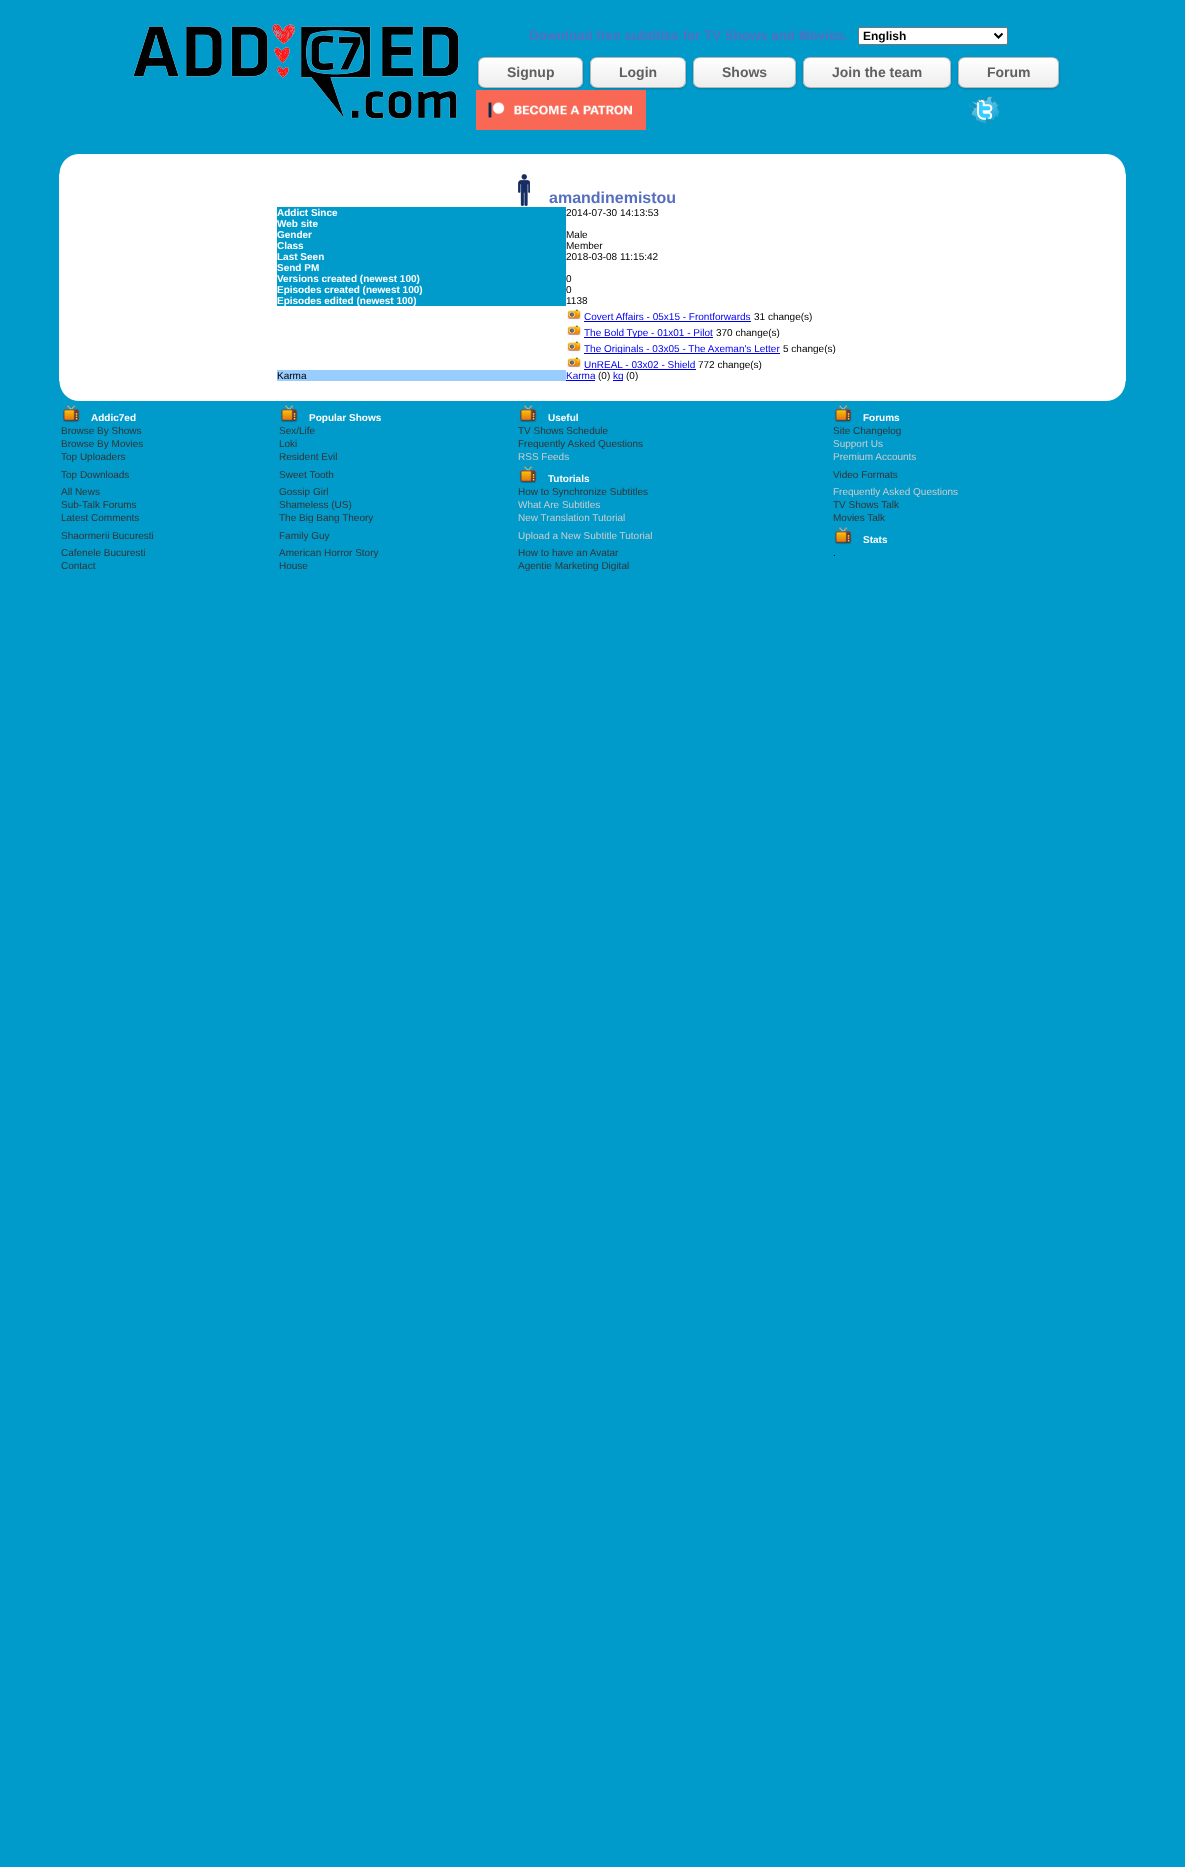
<svg xmlns="http://www.w3.org/2000/svg" width="1185" height="1867">
	<defs>
		<clipPath id="clip1"><rect x="478" y="57" width="105" height="31" rx="7" /></clipPath>
		<linearGradient id="g1" gradientUnits="userSpaceOnUse" x1="479" y1="58" x2="479" y2="87"><stop offset="0" stop-color="#FFFFFF" /><stop offset="1" stop-color="#EDEDED" /></linearGradient>
		<clipPath id="clip2"><rect x="590" y="57" width="96" height="31" rx="7" /></clipPath>
		<linearGradient id="g2" gradientUnits="userSpaceOnUse" x1="591" y1="58" x2="591" y2="87"><stop offset="0" stop-color="#FFFFFF" /><stop offset="1" stop-color="#EDEDED" /></linearGradient>
		<clipPath id="clip3"><rect x="693" y="57" width="103" height="31" rx="7" /></clipPath>
		<linearGradient id="g3" gradientUnits="userSpaceOnUse" x1="694" y1="58" x2="694" y2="87"><stop offset="0" stop-color="#FFFFFF" /><stop offset="1" stop-color="#EDEDED" /></linearGradient>
		<clipPath id="clip4"><rect x="803" y="57" width="148" height="31" rx="7" /></clipPath>
		<linearGradient id="g4" gradientUnits="userSpaceOnUse" x1="804" y1="58" x2="804" y2="87"><stop offset="0" stop-color="#FFFFFF" /><stop offset="1" stop-color="#EDEDED" /></linearGradient>
		<clipPath id="clip5"><rect x="958" y="57" width="101" height="31" rx="7" /></clipPath>
		<linearGradient id="g5" gradientUnits="userSpaceOnUse" x1="959" y1="58" x2="959" y2="87"><stop offset="0" stop-color="#FFFFFF" /><stop offset="1" stop-color="#EDEDED" /></linearGradient>
	</defs>
	<rect width="100%" height="100%" fill="#009BCB" />
	<image x="133" y="24" width="326" height="95" href="assets/img1.png" />
	<text x="529" y="40" font-family="Liberation Sans" font-size="13.3" font-weight="700" fill="#566EBF">Download free subtitles for TV Shows and Movies.</text>
	<rect x="858.5" y="27.5" width="149" height="17" rx="1.5" fill="#FFFFFF" stroke="#767676" />
	<path d="M994.5 33.5L998.5 37.5L1002.5 33.5" fill="none" stroke="#000000" stroke-width="2" />
	<text x="863" y="40" font-family="Liberation Sans" font-size="12" font-weight="700" fill="#000000">English</text>
	<rect x="478" y="58" width="105" height="31" rx="7" fill="#000000" fill-opacity="0.2" filter="blur(1px)" />
	<g clip-path="url(#clip1)">
		<rect x="478" y="58" width="105" height="29" fill="url(#g1)" />
	</g>
	<rect x="478.5" y="57.5" width="104" height="30" rx="6.5" fill="none" stroke="#B7B7B7" />
	<text x="507" y="77" font-family="Liberation Sans" font-size="14" font-weight="700" fill="#606060">Signup</text>
	<rect x="590" y="58" width="96" height="31" rx="7" fill="#000000" fill-opacity="0.2" filter="blur(1px)" />
	<g clip-path="url(#clip2)">
		<rect x="590" y="58" width="96" height="29" fill="url(#g2)" />
	</g>
	<rect x="590.5" y="57.5" width="95" height="30" rx="6.5" fill="none" stroke="#B7B7B7" />
	<text x="619" y="77" font-family="Liberation Sans" font-size="14" font-weight="700" fill="#606060">Login</text>
	<rect x="693" y="58" width="103" height="31" rx="7" fill="#000000" fill-opacity="0.2" filter="blur(1px)" />
	<g clip-path="url(#clip3)">
		<rect x="693" y="58" width="103" height="29" fill="url(#g3)" />
	</g>
	<rect x="693.5" y="57.5" width="102" height="30" rx="6.5" fill="none" stroke="#B7B7B7" />
	<text x="722" y="77" font-family="Liberation Sans" font-size="14" font-weight="700" fill="#606060">Shows</text>
	<rect x="803" y="58" width="148" height="31" rx="7" fill="#000000" fill-opacity="0.2" filter="blur(1px)" />
	<g clip-path="url(#clip4)">
		<rect x="803" y="58" width="148" height="29" fill="url(#g4)" />
	</g>
	<rect x="803.5" y="57.5" width="147" height="30" rx="6.5" fill="none" stroke="#B7B7B7" />
	<text x="832" y="77" font-family="Liberation Sans" font-size="14" font-weight="700" fill="#606060">Join the team</text>
	<rect x="958" y="58" width="101" height="31" rx="7" fill="#000000" fill-opacity="0.2" filter="blur(1px)" />
	<g clip-path="url(#clip5)">
		<rect x="958" y="58" width="101" height="29" fill="url(#g5)" />
	</g>
	<rect x="958.5" y="57.5" width="100" height="30" rx="6.5" fill="none" stroke="#B7B7B7" />
	<text x="987" y="77" font-family="Liberation Sans" font-size="14" font-weight="700" fill="#606060">Forum</text>
	<image x="476" y="90" width="170" height="40" href="assets/img2.png" />
	<image x="969" y="96" width="32" height="28" href="assets/img3.png" />
	<rect x="59" y="154" width="1067" height="247" fill="#FFFFFF" />
	<image x="59" y="154" width="19" height="20" href="assets/img4.png" />
	<image x="1107" y="154" width="19" height="20" href="assets/img5.png" />
	<image x="518" y="174" width="12" height="32" href="assets/img6.png" />
	<text x="549" y="203" font-family="Liberation Sans" font-size="16" font-weight="700" fill="#566EBF">amandinemistou</text>
	<rect x="277" y="207" width="289" height="99" fill="#009BCB" />
	<text x="277" y="216" font-family="Liberation Sans" font-size="10" font-weight="700" fill="#FFFFFF">Addict Since</text>
	<text x="566" y="216" font-family="Liberation Sans" font-size="10" fill="#000000">2014-07-30 14:13:53</text>
	<g font-family="Liberation Sans" font-size="10" font-weight="700" fill="#FFFFFF">
		<text x="277" y="227">Web site</text>
		<text x="277" y="238">Gender</text>
	</g>
	<text x="566" y="238" font-family="Liberation Sans" font-size="10" fill="#000000">Male</text>
	<text x="277" y="249" font-family="Liberation Sans" font-size="10" font-weight="700" fill="#FFFFFF">Class</text>
	<text x="566" y="249" font-family="Liberation Sans" font-size="10" fill="#000000">Member</text>
	<text x="277" y="260" font-family="Liberation Sans" font-size="10" font-weight="700" fill="#FFFFFF">Last Seen</text>
	<text x="566" y="260" font-family="Liberation Sans" font-size="10" fill="#000000">2018-03-08 11:15:42</text>
	<g font-family="Liberation Sans" font-size="10" font-weight="700" fill="#FFFFFF">
		<text x="277" y="271">Send PM</text>
		<text x="277" y="282">Versions created (newest 100)</text>
	</g>
	<text x="566" y="282" font-family="Liberation Sans" font-size="10" fill="#000000">0</text>
	<text x="277" y="293" font-family="Liberation Sans" font-size="10" font-weight="700" fill="#FFFFFF">Episodes created (newest 100)</text>
	<text x="566" y="293" font-family="Liberation Sans" font-size="10" fill="#000000">0</text>
	<text x="277" y="304" font-family="Liberation Sans" font-size="10" font-weight="700" fill="#FFFFFF">Episodes edited (newest 100)</text>
	<text x="566" y="304" font-family="Liberation Sans" font-size="10" fill="#000000">1138</text>
	<image x="567" y="309" width="14" height="11" href="assets/img7.png" />
	<text x="584" y="320" font-family="Liberation Sans" font-size="10" fill="#0000EE">Covert Affairs - 05x15 - Frontforwards</text>
	<rect x="584" y="321" width="167" height="1" fill="#0000EE" />
	<text x="754" y="320" font-family="Liberation Sans" font-size="10" fill="#000000">31 change(s)</text>
	<image x="567" y="325" width="14" height="11" href="assets/img7.png" />
	<rect x="584" y="337" width="129" height="1" fill="#0000EE" />
	<text x="584" y="336" font-family="Liberation Sans" font-size="10" fill="#0000EE">The Bold Type - 01x01 - Pilot</text>
	<text x="716" y="336" font-family="Liberation Sans" font-size="10" fill="#000000">370 change(s)</text>
	<image x="567" y="341" width="14" height="11" href="assets/img7.png" />
	<rect x="584" y="353" width="196" height="1" fill="#0000EE" />
	<text x="584" y="352" font-family="Liberation Sans" font-size="10" fill="#0000EE">The Originals - 03x05 - The Axeman's Letter</text>
	<text x="783" y="352" font-family="Liberation Sans" font-size="10" fill="#000000">5 change(s)</text>
	<image x="567" y="357" width="14" height="11" href="assets/img7.png" />
	<text x="584" y="368" font-family="Liberation Sans" font-size="10" fill="#0000EE">UnREAL - 03x02 - Shield</text>
	<rect x="584" y="369" width="112" height="1" fill="#0000EE" />
	<text x="698" y="368" font-family="Liberation Sans" font-size="10" fill="#000000">772 change(s)</text>
	<rect x="277" y="370" width="289" height="11" fill="#99CCFF" />
	<text x="277" y="379" font-family="Liberation Sans" font-size="10" fill="#000000">Karma</text>
	<text x="566" y="379" font-family="Liberation Sans" font-size="10" fill="#0000EE">Karma</text>
	<rect x="566" y="380" width="29" height="1" fill="#0000EE" />
	<text x="598" y="379" font-family="Liberation Sans" font-size="10" fill="#000000">(0)</text>
	<rect x="613" y="380" width="10" height="1" fill="#0000EE" />
	<text x="613" y="379" font-family="Liberation Sans" font-size="10" fill="#0000EE">kg</text>
	<text x="626" y="379" font-family="Liberation Sans" font-size="10" fill="#000000">(0)</text>
	<image x="59" y="381" width="19" height="20" href="assets/img8.png" />
	<image x="1107" y="381" width="19" height="20" href="assets/img9.png" />
	<image x="62" y="404" width="18" height="19" href="assets/img10.png" />
	<text x="91" y="421" font-family="Liberation Sans" font-size="10" font-weight="700" fill="#FFFFFF">Addic7ed</text>
	<image x="280" y="404" width="18" height="19" href="assets/img10.png" />
	<text x="309" y="421" font-family="Liberation Sans" font-size="10" font-weight="700" fill="#FFFFFF">Popular Shows</text>
	<image x="519" y="404" width="18" height="19" href="assets/img11.png" />
	<text x="548" y="421" font-family="Liberation Sans" font-size="10" font-weight="700" fill="#FFFFFF">Useful</text>
	<image x="834" y="404" width="18" height="19" href="assets/img10.png" />
	<text x="863" y="421" font-family="Liberation Sans" font-size="10" font-weight="700" fill="#FFFFFF">Forums</text>
	<g font-family="Liberation Sans" font-size="10" fill="#333333">
		<text x="61" y="434">Browse By Shows</text>
		<text x="279" y="434">Sex/Life</text>
		<text x="518" y="434">TV Shows Schedule</text>
		<text x="833" y="434">Site Changelog</text>
		<text x="61" y="447">Browse By Movies</text>
		<text x="279" y="447">Loki</text>
		<text x="518" y="447">Frequently Asked Questions</text>
	</g>
	<text x="833" y="447" font-family="Liberation Sans" font-size="10" fill="#CCCCCC">Support Us</text>
	<g font-family="Liberation Sans" font-size="10" fill="#333333">
		<text x="61" y="460">Top Uploaders</text>
		<text x="279" y="460">Resident Evil</text>
	</g>
	<g font-family="Liberation Sans" font-size="10" fill="#CCCCCC">
		<text x="518" y="460">RSS Feeds</text>
		<text x="833" y="460">Premium Accounts</text>
	</g>
	<g font-family="Liberation Sans" font-size="10" fill="#333333">
		<text x="61" y="478">Top Downloads</text>
		<text x="279" y="478">Sweet Tooth</text>
	</g>
	<image x="519" y="465" width="18" height="19" href="assets/img12.png" />
	<text x="548" y="482" font-family="Liberation Sans" font-size="10" font-weight="700" fill="#FFFFFF">Tutorials</text>
	<g font-family="Liberation Sans" font-size="10" fill="#333333">
		<text x="833" y="478">Video Formats</text>
		<text x="61" y="495">All News</text>
		<text x="279" y="495">Gossip Girl</text>
		<text x="518" y="495">How to Synchronize Subtitles</text>
	</g>
	<text x="833" y="495" font-family="Liberation Sans" font-size="10" fill="#CCCCCC">Frequently Asked Questions</text>
	<g font-family="Liberation Sans" font-size="10" fill="#333333">
		<text x="61" y="508">Sub-Talk Forums</text>
		<text x="279" y="508">Shameless (US)</text>
	</g>
	<text x="518" y="508" font-family="Liberation Sans" font-size="10" fill="#CCCCCC">What Are Subtitles</text>
	<g font-family="Liberation Sans" font-size="10" fill="#333333">
		<text x="833" y="508">TV Shows Talk</text>
		<text x="61" y="521">Latest Comments</text>
		<text x="279" y="521">The Big Bang Theory</text>
	</g>
	<text x="518" y="521" font-family="Liberation Sans" font-size="10" fill="#CCCCCC">New Translation Tutorial</text>
	<g font-family="Liberation Sans" font-size="10" fill="#333333">
		<text x="833" y="521">Movies Talk</text>
		<text x="61" y="539">Shaormerii Bucuresti</text>
		<text x="279" y="539">Family Guy</text>
	</g>
	<text x="518" y="539" font-family="Liberation Sans" font-size="10" fill="#CCCCCC">Upload a New Subtitle Tutorial</text>
	<image x="834" y="526" width="18" height="19" href="assets/img10.png" />
	<text x="863" y="543" font-family="Liberation Sans" font-size="10" font-weight="700" fill="#FFFFFF">Stats</text>
	<g font-family="Liberation Sans" font-size="10" fill="#333333">
		<text x="61" y="556">Cafenele Bucuresti</text>
		<text x="279" y="556">American Horror Story</text>
		<text x="518" y="556">How to have an Avatar</text>
	</g>
	<text x="833" y="556" font-family="Liberation Sans" font-size="10" fill="#000000">.</text>
	<g font-family="Liberation Sans" font-size="10" fill="#333333">
		<text x="61" y="569">Contact</text>
		<text x="279" y="569">House</text>
		<text x="518" y="569">Agentie Marketing Digital</text>
	</g>
</svg>
